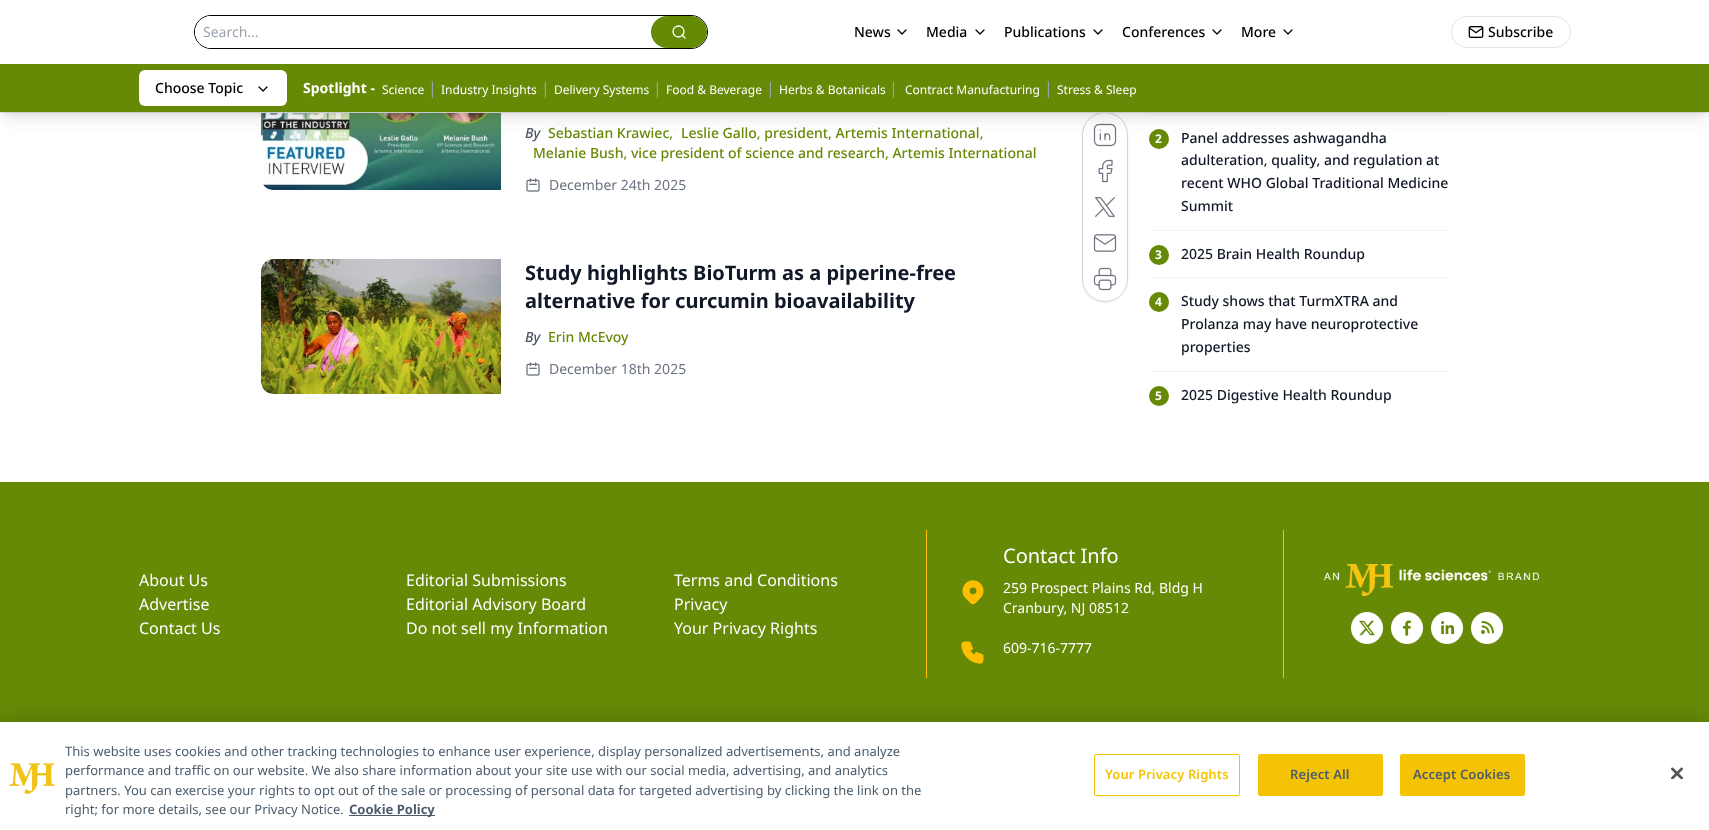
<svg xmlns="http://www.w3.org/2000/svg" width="1709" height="830">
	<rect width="100%" height="100%" fill="#FFFFFF" />
	<rect x="1082" y="113" width="46" height="190" rx="23" fill="#000000" fill-opacity="0.05" filter="blur(1px)" />
	<rect x="1082.5" y="112.5" width="45" height="189" rx="22.5" fill="#FFFFFF" stroke="#D1D5DB" />
	<rect x="0" y="112" width="1709" height="1" fill="#E5E7EB" />
	<rect x="194.5" y="15.5" width="513" height="33" rx="16.5" fill="none" stroke="#000000" />
	<rect x="195" y="16" width="512" height="32" rx="16" fill="#FFFFFF" />
	<text x="203" y="37" font-family="Noto Sans" font-size="14" fill="#9CA3AF">Search...</text>
	<rect x="651" y="16" width="56" height="32" rx="16" fill="#668906" />
	<circle cx="678.5" cy="31.5" r="5.5" fill="none" stroke="#FFFFFF" stroke-width="1.3" />
	<path d="M685 38L682 35" fill="none" stroke="#FFFFFF" stroke-width="1.3" stroke-linecap="round" stroke-linejoin="round" />
	<text x="854" y="37" font-family="Noto Sans" font-size="14" font-weight="500" fill="#000000">News</text>
	<path d="M898 30L902 34L906 30" fill="none" stroke="#000000" stroke-width="1.3" stroke-linecap="round" stroke-linejoin="round" />
	<text x="926" y="37" font-family="Noto Sans" font-size="14" font-weight="500" fill="#000000">Media</text>
	<path d="M976 30L980 34L984 30" fill="none" stroke="#000000" stroke-width="1.3" stroke-linecap="round" stroke-linejoin="round" />
	<text x="1004" y="37" font-family="Noto Sans" font-size="14" font-weight="500" fill="#000000">Publications</text>
	<path d="M1094 30L1098 34L1102 30" fill="none" stroke="#000000" stroke-width="1.3" stroke-linecap="round" stroke-linejoin="round" />
	<text x="1122" y="37" font-family="Noto Sans" font-size="14" font-weight="500" fill="#000000">Conferences</text>
	<path d="M1213 30L1217 34L1221 30" fill="none" stroke="#000000" stroke-width="1.3" stroke-linecap="round" stroke-linejoin="round" />
	<text x="1241" y="37" font-family="Noto Sans" font-size="14" font-weight="500" fill="#000000">More</text>
	<path d="M1284 30L1288 34L1292 30" fill="none" stroke="#000000" stroke-width="1.3" stroke-linecap="round" stroke-linejoin="round" />
	<rect x="1451.5" y="16.5" width="119" height="31" rx="15.5" fill="none" stroke="#E5E7EB" />
	<image x="1468" y="26" width="16" height="12" href="assets/img1.png" />
	<text x="1488" y="37" font-family="Noto Sans" font-size="14" font-weight="500" fill="#000000">Subscribe</text>
	<image x="261" y="113" width="240" height="77" href="assets/img2.png" />
	<rect x="1149" y="114" width="300" height="1" fill="#F3F4F6" />
	<rect x="4" y="72" width="1701" height="40" fill="#000000" fill-opacity="0.1" filter="blur(3px)" />
	<image x="1093" y="123" width="24" height="24" href="assets/img5.png" />
	<circle cx="1159" cy="139" r="10" fill="#668906" />
	<rect x="3" y="77" width="1703" height="42" fill="#000000" fill-opacity="0.1" filter="blur(7.5px)" />
	<rect x="0" y="64" width="1709" height="48" fill="#668906" />
	<rect x="139" y="70" width="148" height="36" rx="6" fill="#FFFFFF" />
	<text x="155" y="93" font-family="Noto Sans" font-size="14" font-weight="500" fill="#000000">Choose Topic</text>
	<path d="M259 87L263 91L267 87" fill="none" stroke="#000000" stroke-width="1.3" stroke-linecap="round" stroke-linejoin="round" />
	<text x="303" y="93" font-family="Noto Sans" font-size="14" font-weight="700" fill="#FFFFFF">Spotlight -</text>
	<text x="382" y="94" font-family="Noto Sans" font-size="12" fill="#FFFFFF">Science</text>
	<text x="428" y="94" font-family="Noto Sans" font-size="16" fill="#9CA3AF">|</text>
	<text x="441" y="94" font-family="Noto Sans" font-size="12" fill="#FFFFFF">Industry Insights</text>
	<text x="541" y="94" font-family="Noto Sans" font-size="16" fill="#9CA3AF">|</text>
	<text x="554" y="94" font-family="Noto Sans" font-size="12" fill="#FFFFFF">Delivery Systems</text>
	<text x="653" y="94" font-family="Noto Sans" font-size="16" fill="#9CA3AF">|</text>
	<text x="666" y="94" font-family="Noto Sans" font-size="12" fill="#FFFFFF">Food &amp; Beverage</text>
	<text x="766" y="94" font-family="Noto Sans" font-size="16" fill="#9CA3AF">|</text>
	<text x="779" y="94" font-family="Noto Sans" font-size="12" fill="#FFFFFF">Herbs &amp; Botanicals</text>
	<text x="889" y="94" font-family="Noto Sans" font-size="16" fill="#9CA3AF">|</text>
	<text x="905" y="94" font-family="Noto Sans" font-size="12" fill="#FFFFFF">Contract Manufacturing</text>
	<text x="1044" y="94" font-family="Noto Sans" font-size="16" fill="#9CA3AF">|</text>
	<text x="1057" y="94" font-family="Noto Sans" font-size="12" fill="#FFFFFF">Stress &amp; Sleep</text>
	<text x="525" y="138" font-family="Noto Sans" font-size="14" font-weight="500" font-style="italic" fill="#4B5563">By</text>
	<g font-family="Noto Sans" font-size="14" font-weight="500" fill="#668906">
		<text x="548" y="138">Sebastian Krawiec,</text>
		<text x="681" y="138">Leslie Gallo, president, Artemis International,</text>
		<text x="533" y="158">Melanie Bush, vice president of science and research, Artemis International</text>
	</g>
	<image x="526" y="178" width="14" height="14" href="assets/img3.png" />
	<text x="549" y="190" font-family="Noto Sans" font-size="14" fill="#6B7280">December 24th 2025</text>
	<image x="261" y="259" width="240" height="135" href="assets/img4.png" />
	<g font-family="Noto Sans" font-size="20" font-weight="700" fill="#111827">
		<text x="525" y="280">Study highlights BioTurm as a piperine-free</text>
		<text x="525" y="308">alternative for curcumin bioavailability</text>
	</g>
	<text x="525" y="342" font-family="Noto Sans" font-size="14" font-weight="500" font-style="italic" fill="#4B5563">By</text>
	<text x="548" y="342" font-family="Noto Sans" font-size="14" font-weight="500" fill="#668906">Erin McEvoy</text>
	<image x="526" y="362" width="14" height="14" href="assets/img3.png" />
	<text x="549" y="374" font-family="Noto Sans" font-size="14" fill="#6B7280">December 18th 2025</text>
	<image x="1098" y="159" width="15" height="24" href="assets/img6.png" />
	<image x="1095" y="197" width="20" height="20" href="assets/img7.png" />
	<image x="1093" y="234" width="24" height="18" href="assets/img8.png" />
	<image x="1093" y="267" width="24" height="24" href="assets/img9.png" />
	<text x="1155" y="143" font-family="Noto Sans" font-size="12" font-weight="700" fill="#FFFFFF">2</text>
	<g font-family="Noto Sans" font-size="14" font-weight="500" fill="#111827">
		<text x="1181" y="143">Panel addresses ashwagandha</text>
		<text x="1181" y="165">adulteration, quality, and regulation at</text>
		<text x="1181" y="188">recent WHO Global Traditional Medicine</text>
		<text x="1181" y="211">Summit</text>
	</g>
	<rect x="1149" y="230" width="300" height="1" fill="#F3F4F6" />
	<circle cx="1159" cy="255" r="10" fill="#668906" />
	<text x="1155" y="259" font-family="Noto Sans" font-size="12" font-weight="700" fill="#FFFFFF">3</text>
	<text x="1181" y="259" font-family="Noto Sans" font-size="14" font-weight="500" fill="#111827">2025 Brain Health Roundup</text>
	<rect x="1149" y="277" width="300" height="1" fill="#F3F4F6" />
	<circle cx="1159" cy="302" r="10" fill="#668906" />
	<text x="1155" y="306" font-family="Noto Sans" font-size="12" font-weight="700" fill="#FFFFFF">4</text>
	<g font-family="Noto Sans" font-size="14" font-weight="500" fill="#111827">
		<text x="1181" y="306">Study shows that TurmXTRA and</text>
		<text x="1181" y="329">Prolanza may have neuroprotective</text>
		<text x="1181" y="352">properties</text>
	</g>
	<rect x="1149" y="371" width="300" height="1" fill="#F3F4F6" />
	<circle cx="1159" cy="396" r="10" fill="#668906" />
	<text x="1155" y="400" font-family="Noto Sans" font-size="12" font-weight="700" fill="#FFFFFF">5</text>
	<text x="1181" y="400" font-family="Noto Sans" font-size="14" font-weight="500" fill="#111827">2025 Digestive Health Roundup</text>
	<rect x="0" y="482" width="1709" height="240" fill="#668906" />
	<g font-family="Noto Sans" font-size="16" fill="#FFFFFF">
		<text x="139" y="586">About Us</text>
		<text x="406" y="586">Editorial Submissions</text>
		<text x="674" y="586">Terms and Conditions</text>
		<text x="139" y="610">Advertise</text>
		<text x="406" y="610">Editorial Advisory Board</text>
		<text x="674" y="610">Privacy</text>
		<text x="139" y="634">Contact Us</text>
		<text x="406" y="634">Do not sell my Information</text>
		<text x="674" y="634">Your Privacy Rights</text>
	</g>
	<rect x="1283" y="530" width="1" height="148" fill="#FFBF00" />
	<rect x="926" y="530" width="1" height="148" fill="#FFBF00" />
	<text x="1003" y="563" font-family="Noto Sans" font-size="20" fill="#FFFFFF">Contact Info</text>
	<image x="962" y="580" width="22" height="25" href="assets/img10.png" />
	<g font-family="Noto Sans" font-size="14" fill="#FFFFFF">
		<text x="1003" y="593">259 Prospect Plains Rd, Bldg H</text>
		<text x="1003" y="613">Cranbury, NJ 08512</text>
	</g>
	<image x="961" y="641" width="23" height="23" href="assets/img11.png" />
	<text x="1003" y="653" font-family="Noto Sans" font-size="14" fill="#FFFFFF">609-716-7777</text>
	<image x="1324" y="564" width="215" height="32" href="assets/img12.png" />
	<image x="1351" y="612" width="32" height="32" href="assets/img13.png" />
	<image x="1391" y="612" width="32" height="32" href="assets/img14.png" />
	<image x="1431" y="612" width="32" height="32" href="assets/img15.png" />
	<image x="1471" y="612" width="32" height="32" href="assets/img16.png" />
	<rect x="0" y="722" width="1709" height="108" fill="#000000" fill-opacity="0.2" filter="blur(9px)" />
	<rect x="0" y="722" width="1709" height="108" fill="#FFFFFF" />
	<image x="9" y="763" width="46" height="31" href="assets/img17.png" />
	<g font-family="Noto Sans" font-size="13" fill="#4C5C6B">
		<text x="65" y="756">This website uses cookies and other tracking technologies to enhance user experience, display personalized advertisements, and analyze</text>
		<text x="65" y="775">performance and traffic on our website. We also share information about your site use with our social media, advertising, and analytics</text>
		<text x="65" y="795">partners. You can exercise your rights to opt out of the sale or processing of personal data for targeted advertising by clicking the link on the</text>
		<text x="65" y="814">right; for more details, see our Privacy Notice.</text>
	</g>
	<rect x="349" y="815" width="86" height="1" fill="#4C5C6B" />
	<text x="349" y="814" font-family="Noto Sans" font-size="13" font-weight="700" fill="#4C5C6B">Cookie Policy</text>
	<rect x="1094.5" y="754.5" width="145" height="41" rx="1.5" fill="none" stroke="#F4C404" />
	<text x="1105" y="779" font-family="Noto Sans" font-size="13" font-weight="600" letter-spacing="0.1" fill="#F4C404">Your Privacy Rights</text>
	<rect x="1258.5" y="754.5" width="124" height="41" rx="1.5" fill="#F4C404" stroke="#F4C404" />
	<text x="1290" y="779" font-family="Noto Sans" font-size="13" font-weight="600" letter-spacing="0.1" fill="#4C5C6B">Reject All</text>
	<rect x="1400.5" y="754.5" width="124" height="41" rx="1.5" fill="#F4C404" stroke="#F4C404" />
	<text x="1413" y="779" font-family="Noto Sans" font-size="13" font-weight="600" letter-spacing="0.1" fill="#4C5C6B">Accept Cookies</text>
	<image x="1671" y="767" width="12" height="12" href="assets/img18.png" />
</svg>
